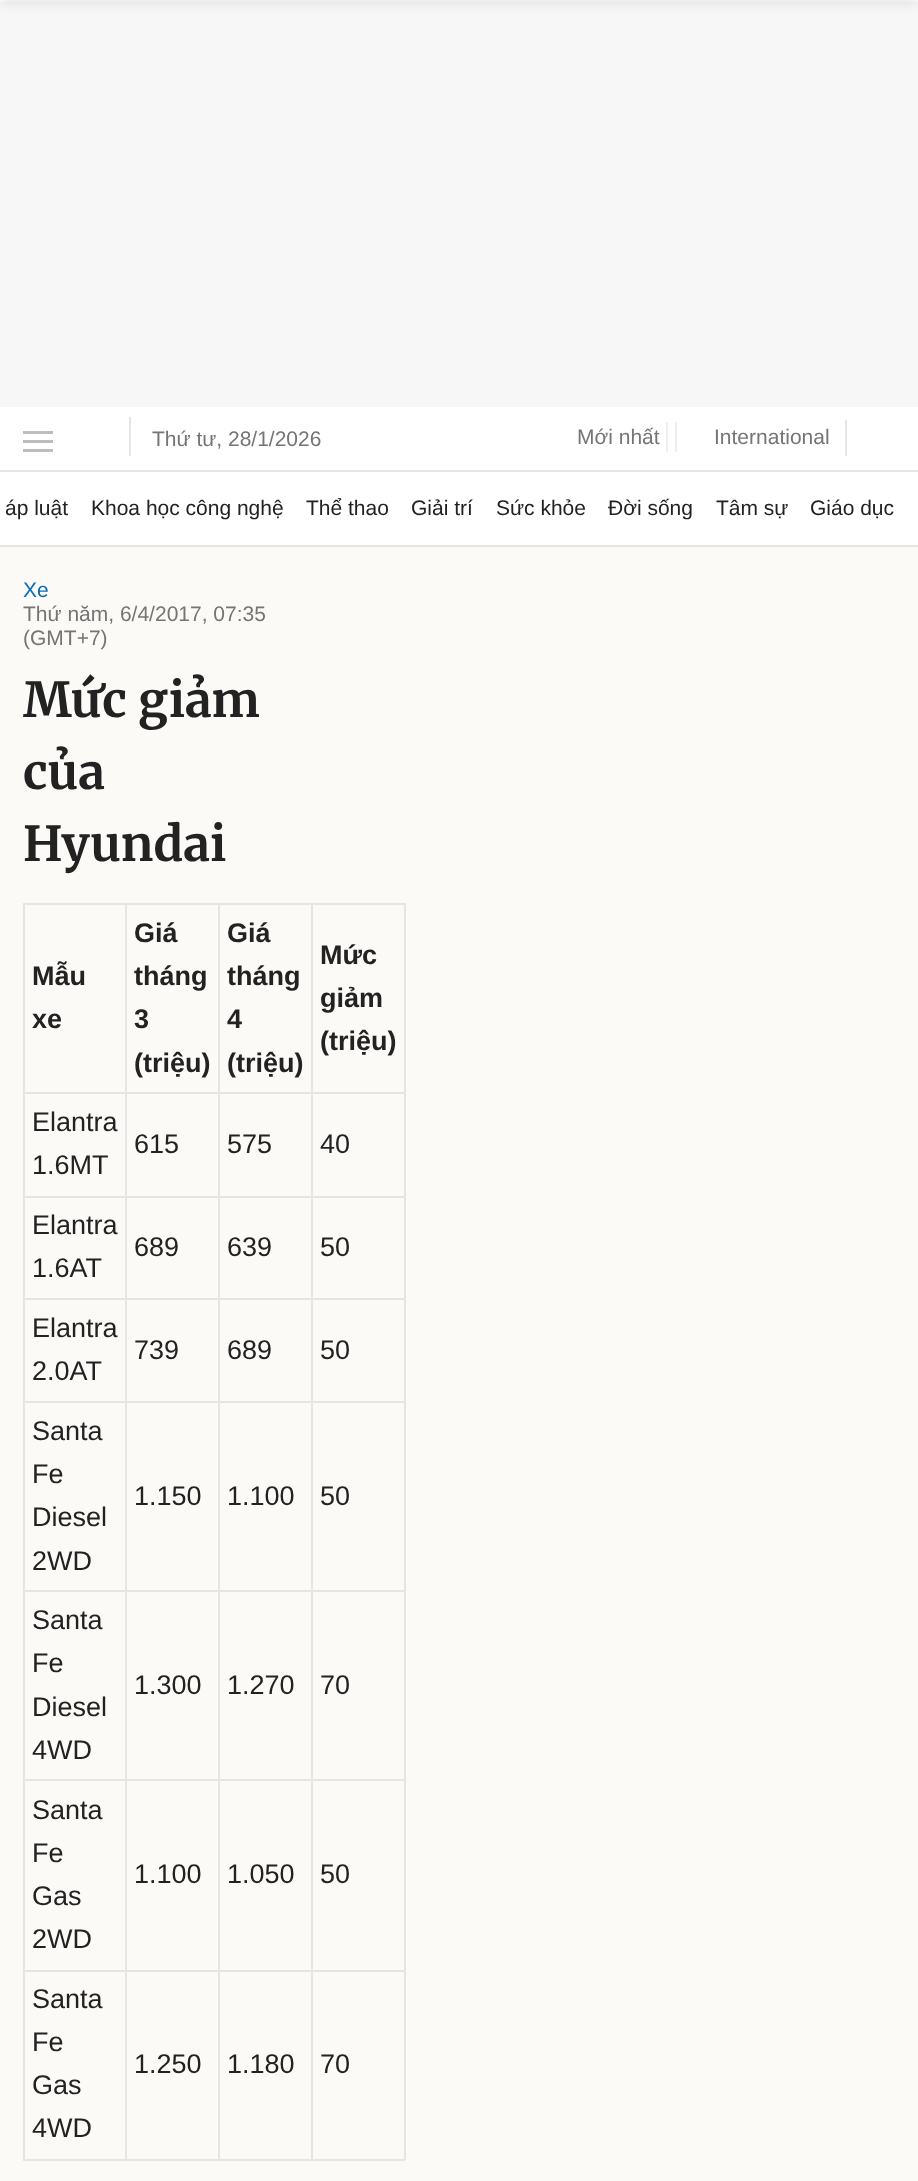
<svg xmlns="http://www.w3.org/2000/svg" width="918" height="2181">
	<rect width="100%" height="100%" fill="#FFFFFF" />
	<rect x="0" y="2" width="918" height="405" fill="#F7F7F7" />
	<rect x="0" y="470" width="918" height="2" fill="#E5E5E5" />
	<rect x="23" y="431" width="30" height="3" fill="#BDBDBD" />
	<rect x="23" y="440" width="30" height="3" fill="#BDBDBD" />
	<rect x="23" y="449" width="30" height="3" fill="#BDBDBD" />
	<rect x="129" y="417" width="2" height="39" fill="#E5E5E5" />
	<g font-family="Liberation Sans" font-size="21" fill="#757575">
		<text x="152" y="446">Thứ tư, 28/1/2026</text>
		<text x="577" y="444">Mới nhất</text>
	</g>
	<rect x="675" y="422" width="2" height="30" fill="#EFEFEF" />
	<rect x="666" y="422" width="2" height="30" fill="#EFEFEF" />
	<text x="714" y="444" font-family="Liberation Sans" font-size="21" fill="#757575">International</text>
	<rect x="845" y="420" width="2" height="36" fill="#E5E5E5" />
	<rect x="0" y="545" width="918" height="2" fill="#E5E5E5" />
	<g font-family="Liberation Sans" font-size="21" fill="#222222">
		<text x="5" y="515">áp luật</text>
		<text x="91" y="515">Khoa học công nghệ</text>
		<text x="306" y="515">Thể thao</text>
		<text x="411" y="515">Giải trí</text>
		<text x="496" y="515">Sức khỏe</text>
		<text x="608" y="515">Đời sống</text>
		<text x="716" y="515">Tâm sự</text>
		<text x="810" y="515">Giáo dục</text>
	</g>
	<rect x="0" y="547" width="918" height="1634" fill="#FCFAF6" />
	<rect x="0" y="-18" width="918" height="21" fill="#000000" fill-opacity="0.1" filter="blur(6px)" />
	<text x="23" y="597" font-family="Liberation Sans" font-size="21" fill="#076DB6">Xe</text>
	<g font-family="Liberation Sans" font-size="21" fill="#757575">
		<text x="23" y="621">Thứ năm, 6/4/2017, 07:35</text>
		<text x="23" y="645">(GMT+7)</text>
	</g>
	<g font-family="Merriweather" font-size="48" font-weight="700" fill="#222222">
		<text x="23" y="717">Mức giảm</text>
		<text x="23" y="789">của</text>
		<text x="23" y="861">Hyundai</text>
	</g>
	<rect x="311" y="903" width="94" height="2" fill="#E5E5E5" />
	<rect x="311" y="1092" width="94" height="2" fill="#E5E5E5" />
	<rect x="311" y="1196" width="94" height="2" fill="#E5E5E5" />
	<rect x="311" y="1298" width="94" height="2" fill="#E5E5E5" />
	<rect x="311" y="1401" width="94" height="2" fill="#E5E5E5" />
	<rect x="311" y="1590" width="94" height="2" fill="#E5E5E5" />
	<rect x="311" y="1779" width="94" height="2" fill="#E5E5E5" />
	<rect x="311" y="1970" width="94" height="2" fill="#E5E5E5" />
	<rect x="404" y="1970" width="2" height="190" fill="#E5E5E5" />
	<rect x="311" y="2159" width="94" height="2" fill="#E5E5E5" />
	<rect x="311" y="1970" width="2" height="190" fill="#E5E5E5" />
	<rect x="218" y="1970" width="94" height="2" fill="#E5E5E5" />
	<rect x="311" y="1779" width="2" height="192" fill="#E5E5E5" />
	<rect x="218" y="1779" width="94" height="2" fill="#E5E5E5" />
	<rect x="311" y="1590" width="2" height="191" fill="#E5E5E5" />
	<rect x="218" y="1590" width="94" height="2" fill="#E5E5E5" />
	<rect x="311" y="1401" width="2" height="191" fill="#E5E5E5" />
	<rect x="218" y="1401" width="94" height="2" fill="#E5E5E5" />
	<rect x="311" y="1298" width="2" height="105" fill="#E5E5E5" />
	<rect x="218" y="1298" width="94" height="2" fill="#E5E5E5" />
	<rect x="311" y="1196" width="2" height="103" fill="#E5E5E5" />
	<rect x="218" y="1196" width="94" height="2" fill="#E5E5E5" />
	<rect x="311" y="1092" width="2" height="105" fill="#E5E5E5" />
	<rect x="218" y="1092" width="94" height="2" fill="#E5E5E5" />
	<rect x="311" y="903" width="2" height="191" fill="#E5E5E5" />
	<rect x="218" y="903" width="94" height="2" fill="#E5E5E5" />
	<rect x="218" y="2159" width="94" height="2" fill="#E5E5E5" />
	<rect x="218" y="1970" width="2" height="190" fill="#E5E5E5" />
	<rect x="125" y="1970" width="94" height="2" fill="#E5E5E5" />
	<rect x="218" y="1779" width="2" height="192" fill="#E5E5E5" />
	<rect x="125" y="1779" width="94" height="2" fill="#E5E5E5" />
	<rect x="218" y="1590" width="2" height="191" fill="#E5E5E5" />
	<rect x="125" y="1590" width="94" height="2" fill="#E5E5E5" />
	<rect x="218" y="1401" width="2" height="191" fill="#E5E5E5" />
	<rect x="125" y="1401" width="94" height="2" fill="#E5E5E5" />
	<rect x="218" y="1298" width="2" height="105" fill="#E5E5E5" />
	<rect x="125" y="1298" width="94" height="2" fill="#E5E5E5" />
	<rect x="218" y="1196" width="2" height="103" fill="#E5E5E5" />
	<rect x="125" y="1196" width="94" height="2" fill="#E5E5E5" />
	<rect x="218" y="1092" width="2" height="105" fill="#E5E5E5" />
	<rect x="125" y="1092" width="94" height="2" fill="#E5E5E5" />
	<rect x="218" y="903" width="2" height="191" fill="#E5E5E5" />
	<rect x="125" y="903" width="94" height="2" fill="#E5E5E5" />
	<rect x="125" y="2159" width="94" height="2" fill="#E5E5E5" />
	<rect x="125" y="1970" width="2" height="190" fill="#E5E5E5" />
	<rect x="23" y="1970" width="103" height="2" fill="#E5E5E5" />
	<rect x="125" y="1779" width="2" height="192" fill="#E5E5E5" />
	<rect x="23" y="1779" width="103" height="2" fill="#E5E5E5" />
	<rect x="125" y="1590" width="2" height="191" fill="#E5E5E5" />
	<rect x="23" y="1590" width="103" height="2" fill="#E5E5E5" />
	<rect x="125" y="1401" width="2" height="191" fill="#E5E5E5" />
	<rect x="23" y="1401" width="103" height="2" fill="#E5E5E5" />
	<rect x="125" y="1298" width="2" height="105" fill="#E5E5E5" />
	<rect x="23" y="1298" width="103" height="2" fill="#E5E5E5" />
	<rect x="125" y="1196" width="2" height="103" fill="#E5E5E5" />
	<rect x="23" y="1196" width="103" height="2" fill="#E5E5E5" />
	<rect x="125" y="1092" width="2" height="105" fill="#E5E5E5" />
	<rect x="23" y="1092" width="103" height="2" fill="#E5E5E5" />
	<rect x="125" y="903" width="2" height="191" fill="#E5E5E5" />
	<rect x="23" y="903" width="103" height="2" fill="#E5E5E5" />
	<rect x="23" y="2159" width="103" height="2" fill="#E5E5E5" />
	<rect x="23" y="1970" width="2" height="190" fill="#E5E5E5" />
	<rect x="23" y="1779" width="2" height="192" fill="#E5E5E5" />
	<rect x="23" y="1590" width="2" height="191" fill="#E5E5E5" />
	<rect x="23" y="1401" width="2" height="191" fill="#E5E5E5" />
	<rect x="23" y="1298" width="2" height="105" fill="#E5E5E5" />
	<rect x="23" y="1196" width="2" height="103" fill="#E5E5E5" />
	<rect x="23" y="1092" width="2" height="105" fill="#E5E5E5" />
	<rect x="23" y="903" width="2" height="191" fill="#E5E5E5" />
	<g font-family="Liberation Sans" font-size="27" font-weight="700" fill="#222222">
		<text x="32" y="985">Mẫu</text>
		<text x="32" y="1028">xe</text>
		<text x="134" y="942">Giá</text>
		<text x="134" y="985">tháng</text>
		<text x="134" y="1028">3</text>
		<text x="134" y="1072">(triệu)</text>
		<text x="227" y="942">Giá</text>
		<text x="227" y="985">tháng</text>
		<text x="227" y="1028">4</text>
		<text x="227" y="1072">(triệu)</text>
	</g>
	<rect x="404" y="1779" width="2" height="192" fill="#E5E5E5" />
	<rect x="404" y="1590" width="2" height="191" fill="#E5E5E5" />
	<rect x="404" y="1401" width="2" height="191" fill="#E5E5E5" />
	<rect x="404" y="1298" width="2" height="105" fill="#E5E5E5" />
	<rect x="404" y="1196" width="2" height="103" fill="#E5E5E5" />
	<rect x="404" y="1092" width="2" height="105" fill="#E5E5E5" />
	<rect x="404" y="903" width="2" height="191" fill="#E5E5E5" />
	<g font-family="Liberation Sans" font-size="27" font-weight="700" fill="#222222">
		<text x="320" y="964">Mức</text>
		<text x="320" y="1007">giảm</text>
		<text x="320" y="1050">(triệu)</text>
	</g>
	<g font-family="Liberation Sans" font-size="27" fill="#222222">
		<text x="32" y="1131">Elantra</text>
		<text x="32" y="1174">1.6MT</text>
		<text x="134" y="1153">615</text>
		<text x="227" y="1153">575</text>
		<text x="320" y="1153">40</text>
		<text x="32" y="1234">Elantra</text>
		<text x="32" y="1277">1.6AT</text>
		<text x="134" y="1256">689</text>
		<text x="227" y="1256">639</text>
		<text x="320" y="1256">50</text>
		<text x="32" y="1337">Elantra</text>
		<text x="32" y="1380">2.0AT</text>
		<text x="134" y="1359">739</text>
		<text x="227" y="1359">689</text>
		<text x="320" y="1359">50</text>
		<text x="32" y="1440">Santa</text>
		<text x="32" y="1483">Fe</text>
		<text x="32" y="1526">Diesel</text>
		<text x="32" y="1570">2WD</text>
		<text x="134" y="1505">1.150</text>
		<text x="227" y="1505">1.100</text>
		<text x="320" y="1505">50</text>
		<text x="32" y="1629">Santa</text>
		<text x="32" y="1672">Fe</text>
		<text x="32" y="1716">Diesel</text>
		<text x="32" y="1759">4WD</text>
		<text x="134" y="1694">1.300</text>
		<text x="227" y="1694">1.270</text>
		<text x="320" y="1694">70</text>
		<text x="32" y="1819">Santa</text>
		<text x="32" y="1862">Fe</text>
		<text x="32" y="1905">Gas</text>
		<text x="32" y="1948">2WD</text>
		<text x="134" y="1883">1.100</text>
		<text x="227" y="1883">1.050</text>
		<text x="320" y="1883">50</text>
		<text x="32" y="2008">Santa</text>
		<text x="32" y="2051">Fe</text>
		<text x="32" y="2094">Gas</text>
		<text x="32" y="2137">4WD</text>
		<text x="134" y="2073">1.250</text>
		<text x="227" y="2073">1.180</text>
		<text x="320" y="2073">70</text>
	</g>
</svg>
